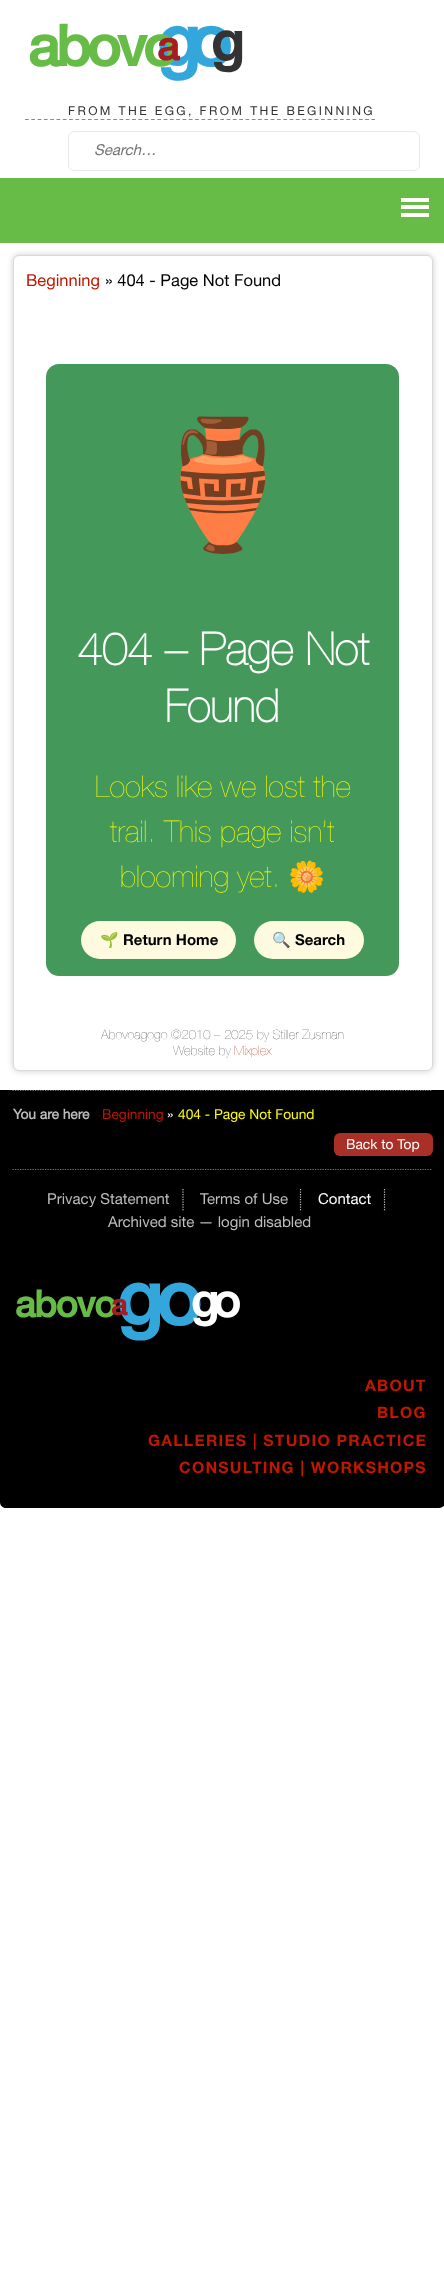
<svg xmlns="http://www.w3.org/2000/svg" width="444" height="2270">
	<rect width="100%" height="100%" fill="#FFFFFF" />
	<text x="157" y="66" font-family="Helvetica Neue" font-size="72" font-weight="700" letter-spacing="-11" fill="#33A6DC">go</text>
	<text x="28" y="66" font-family="Helvetica Neue" font-size="57" font-weight="700" letter-spacing="-3.75" fill="#66BC47">abovo</text>
	<text x="157" y="60" font-family="Helvetica Neue" font-size="40" font-weight="700" letter-spacing="-3.75" fill="#A71C20">a</text>
	<text x="211" y="61" font-family="Helvetica Neue" font-size="55" font-weight="700" letter-spacing="-15" fill="#333333">g</text>
	<path d="M25 119.5H375" fill="none" stroke="#33A6DC" stroke-width="1.2" stroke-dasharray="3.75 2.55" />
	<text x="68" y="115" font-family="Helvetica Neue" font-size="12.2" letter-spacing="2.4" fill="#333333">FROM THE EGG, FROM THE BEGINNING</text>
	<rect x="68.5" y="131.5" width="351" height="39" rx="5.5" fill="none" stroke="#E7E8E9" />
	<text x="94" y="155" font-family="Helvetica Neue" font-size="15" font-style="italic" fill="#757575">Search…</text>
	<rect x="0" y="178" width="444" height="65" fill="#66BC47" />
	<rect x="401" y="198" width="28" height="4" fill="#FFFFFF" />
	<rect x="401" y="205" width="28" height="4" fill="#FFFFFF" />
	<rect x="401" y="213" width="28" height="4" fill="#FFFFFF" />
	<rect x="13" y="255" width="420" height="816" rx="6" fill="#CCCCCC" filter="blur(3px)" />
	<rect x="13.5" y="255.5" width="419" height="815" rx="5.5" fill="#FFFFFF" stroke="#D9D9D9" />
	<text x="26" y="286" font-family="Helvetica Neue" font-size="16.5" fill="#C01700">Beginning</text>
	<text x="105" y="286" font-family="Helvetica Neue" font-size="16.5" fill="#000000">» 404 - Page Not Found</text>
	<rect x="46" y="364" width="353" height="612" rx="13" fill="#449859" />
	<text x="145" y="528" font-family="Noto Color Emoji" font-size="125" fill="#FFFFFF">🏺</text>
	<g font-family="'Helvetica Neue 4'" font-size="45" font-weight="700" fill="#FFFFFF">
		<text x="77" y="665">404 – Page Not</text>
		<text x="165" y="722">Found</text>
	</g>
	<g font-family="Helvetica Neue" font-size="30" font-weight="200" fill="#FFFF00">
		<text x="95" y="797">Looks like we lost the</text>
		<text x="110" y="842">trail. This page isn’t</text>
		<text x="120" y="887">blooming yet.</text>
	</g>
	<text x="288" y="887" font-family="Noto Color Emoji" font-size="30" fill="#FFFF00">🌼</text>
	<rect x="81" y="921" width="155" height="38" rx="19" fill="#FDFADF" />
	<text x="100" y="945" font-family="Noto Color Emoji" font-size="15" fill="#000000">🌱</text>
	<text x="123" y="945" font-family="'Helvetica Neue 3'" font-size="15" font-weight="700" fill="#000000">Return Home</text>
	<rect x="254" y="921" width="110" height="38" rx="19" fill="#FDFADF" />
	<text x="272" y="945" font-family="Noto Color Emoji" font-size="15" fill="#000000">🔍</text>
	<text x="295" y="945" font-family="'Helvetica Neue 3'" font-size="15" font-weight="700" fill="#000000">Search</text>
	<g font-family="Helvetica Neue" font-size="13" font-weight="200" fill="#333333">
		<text x="101" y="1039">Abovoagogo ©2010 – 2025 by Stiller Zusman</text>
		<text x="173" y="1055">Website by</text>
	</g>
	<text x="234" y="1055" font-family="Helvetica Neue" font-size="13" font-weight="200" fill="#C01700">Mixplex</text>
	<path d="M0 1090H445V1502C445 1505.5 442.5 1508 439 1508H6C2.5 1508 0 1505.5 0 1502Z" fill="#000000" />
	<path d="M12.5 1090.5H432.5" fill="none" stroke="#717578" stroke-width="1.2" stroke-dasharray="1.25 1.25" />
	<text x="13" y="1119" font-family="'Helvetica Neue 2'" font-size="13.75" font-weight="700" fill="#BBBDBF">You are here</text>
	<text x="102" y="1119" font-family="Helvetica Neue" font-size="13.75" fill="#C01700">Beginning</text>
	<text x="167" y="1119" font-family="Helvetica Neue" font-size="13.75" fill="#FFFFFF">»</text>
	<text x="178" y="1119" font-family="Helvetica Neue" font-size="13.75" fill="#FFFF00">404 - Page Not Found</text>
	<rect x="334" y="1133" width="99" height="23" rx="6" fill="#AA3027" />
	<text x="346" y="1149" font-family="Helvetica Neue" font-size="13.75" fill="#FFFFFF">Back to Top</text>
	<path d="M12.5 1169.5H432.5" fill="none" stroke="#717578" stroke-width="1.2" stroke-dasharray="1.25 1.25" />
	<path d="M183 1189V1211" fill="none" stroke="#BBBDBF" stroke-width="1.2" stroke-dasharray="1.25 1.25" />
	<text x="47" y="1204" font-family="Helvetica Neue" font-size="15" fill="#BBBDBF">Privacy Statement</text>
	<path d="M300.5 1189V1211" fill="none" stroke="#BBBDBF" stroke-width="1.2" stroke-dasharray="1.25 1.25" />
	<text x="200" y="1204" font-family="Helvetica Neue" font-size="15" fill="#BBBDBF">Terms of Use</text>
	<path d="M384.5 1189V1211" fill="none" stroke="#BBBDBF" stroke-width="1.2" stroke-dasharray="1.25 1.25" />
	<text x="318" y="1204" font-family="Helvetica Neue" font-size="15" fill="#FFFFFF">Contact</text>
	<text x="108" y="1227" font-family="Helvetica Neue" font-size="15" fill="#BBBDBF">Archived site — login disabled</text>
	<text x="15" y="1317" font-family="Helvetica Neue" font-size="37" font-weight="700" letter-spacing="-1.25" fill="#66BC47">abovo</text>
	<text x="117" y="1325" font-family="Helvetica Neue" font-size="76" font-weight="700" letter-spacing="-6" fill="#33A6DC">go</text>
	<g font-family="Helvetica Neue" font-size="46" font-weight="700" letter-spacing="-8" fill="#FFFFFF">
		<text x="191" y="1317">g</text>
		<text x="213" y="1317">o</text>
	</g>
	<text x="111" y="1315" font-family="Helvetica Neue" font-size="29" font-weight="700" letter-spacing="-1.25" fill="#A71C20">a</text>
	<g font-family="'Helvetica Neue 3'" font-size="15.75" font-weight="700" letter-spacing="1.25" fill="#C01700">
		<text x="365" y="1391">ABOUT</text>
		<text x="377" y="1418">BLOG</text>
		<text x="148" y="1446">GALLERIES | STUDIO PRACTICE</text>
		<text x="179" y="1473">CONSULTING | WORKSHOPS</text>
	</g>
</svg>
